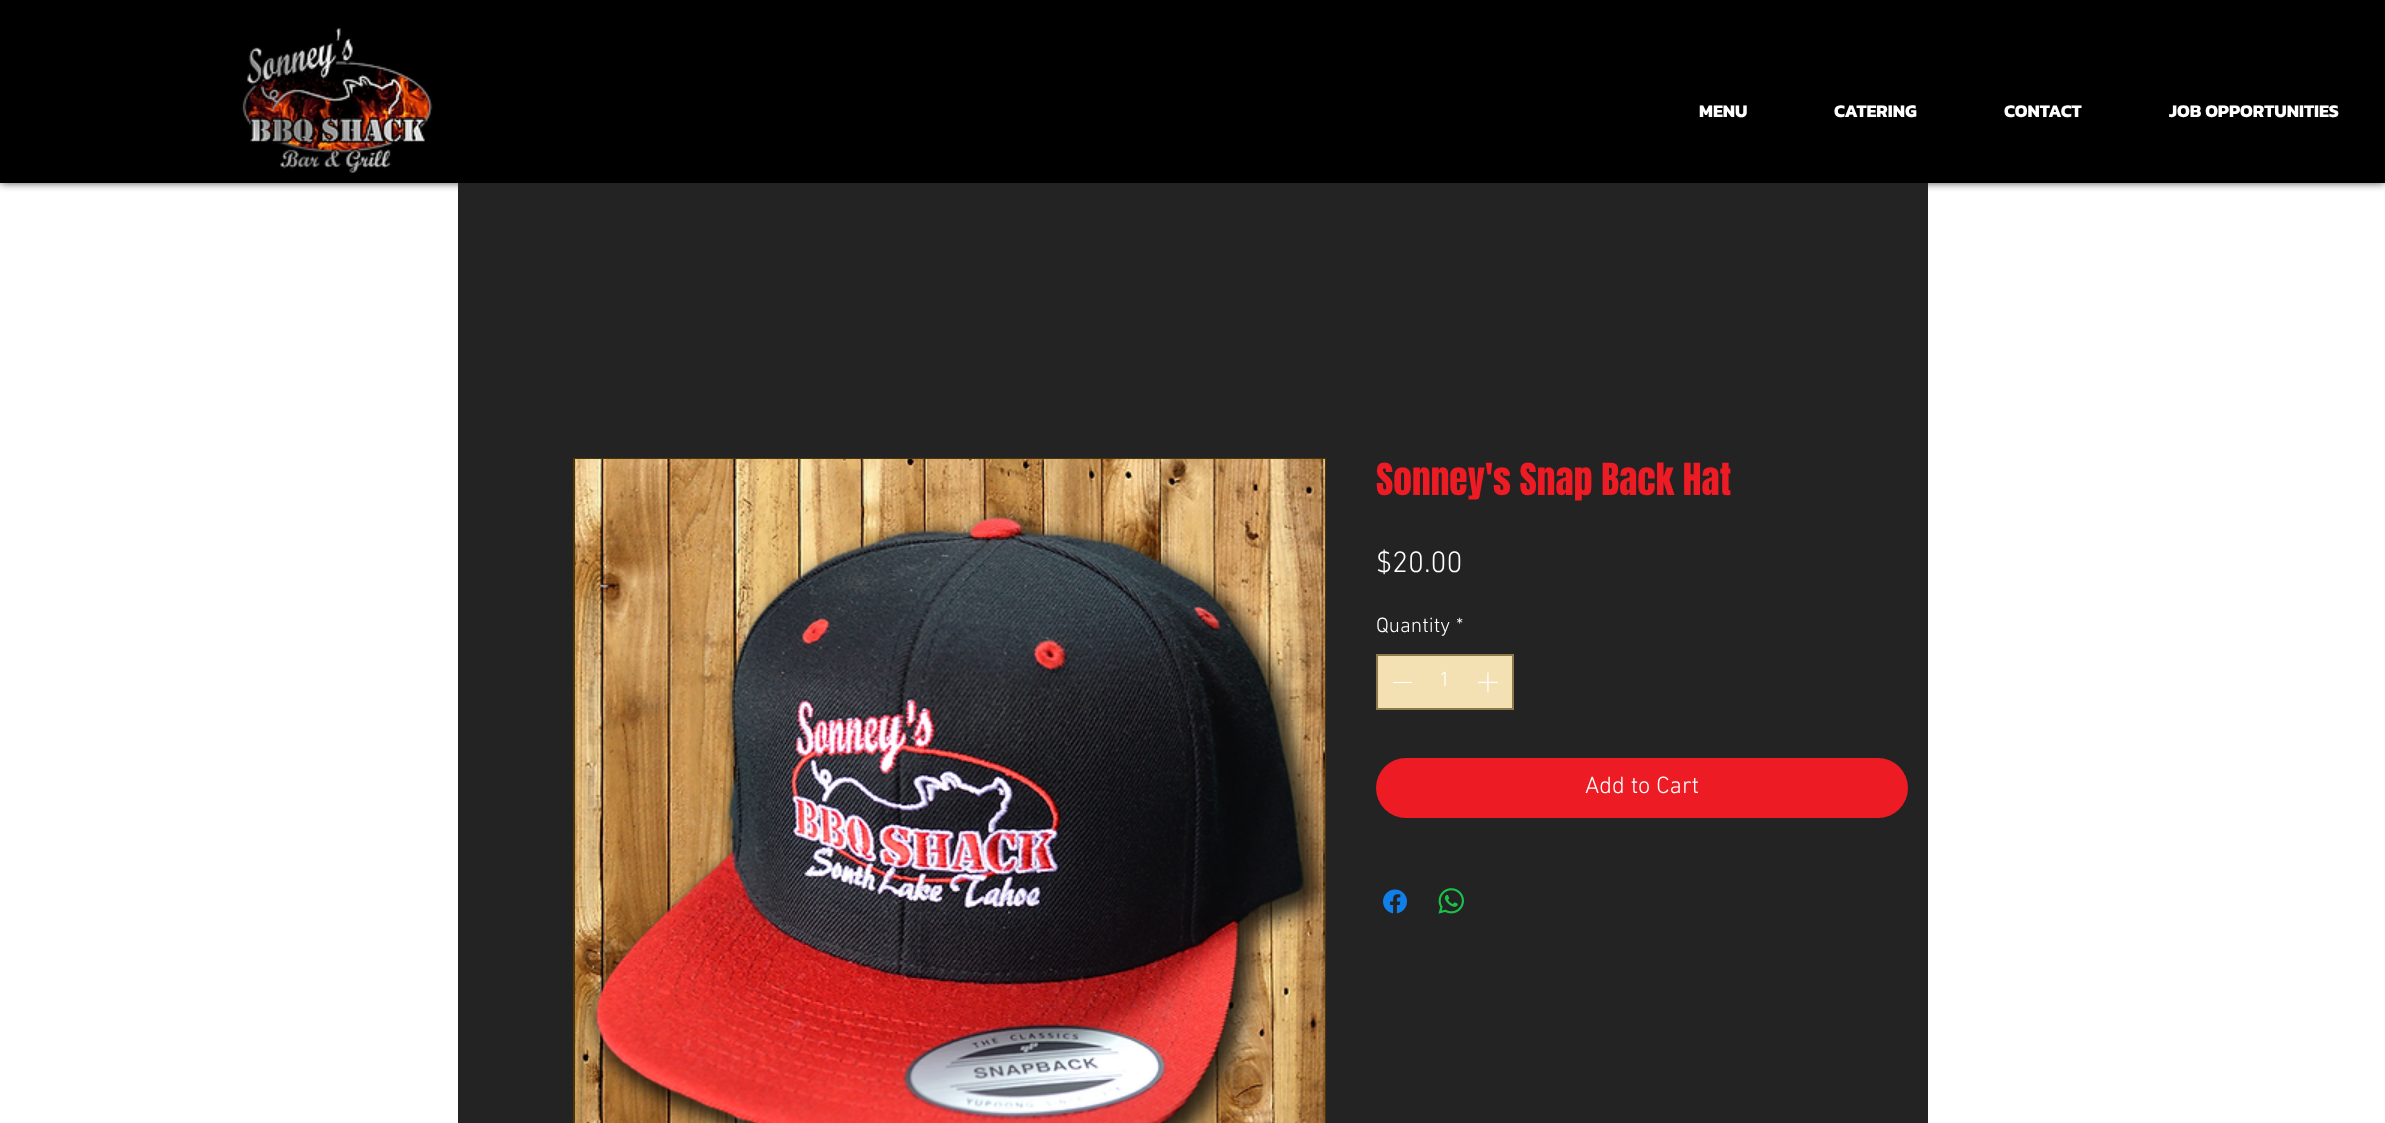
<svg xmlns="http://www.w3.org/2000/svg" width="2385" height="1123">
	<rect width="100%" height="100%" fill="#FFFFFF" />
	<rect x="0" y="0" width="2385" height="183" fill="#000000" fill-opacity="0.7" filter="blur(4px)" />
	<rect x="0" y="0" width="2385" height="183" fill="#000000" />
	<image x="242" y="28" width="191" height="145" href="assets/img1.png" />
	<g font-family="Kanit" font-size="18" font-weight="700" fill="#FFFFFF">
		<text x="1699" y="117">MENU</text>
		<text x="1834" y="117">CATERING</text>
		<text x="2004" y="117">CONTACT</text>
		<text x="2169" y="117">JOB OPPORTUNITIES</text>
	</g>
	<rect x="458" y="183" width="1470" height="940" fill="#232323" />
	<rect x="574" y="459" width="751" height="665" fill="none" stroke="#493508" stroke-width="2" />
	<image x="575" y="459" width="750" height="664" href="assets/img2.png" />
	<text x="1376" y="495" font-family="Anton" font-size="37.5" fill="#ED1C24">Sonney's Snap Back Hat</text>
	<text x="1376" y="572" font-family="'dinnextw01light'" font-size="30" font-weight="300" fill="#FFFFFF">$20.00</text>
	<g font-family="'dinnextw01light'" font-size="21" font-weight="300" fill="#FFFFFF">
		<text x="1376" y="632">Quantity</text>
		<text x="1456" y="632">*</text>
	</g>
	<rect x="1377" y="655" width="136" height="54" fill="#F3E0B3" stroke="#8D794C" stroke-width="2" />
	<rect x="1393" y="682" width="19" height="1" fill="#FDFDFE" />
	<text x="1439" y="686" font-family="'dinnextw01light'" font-size="21" font-weight="300" fill="#FFFFFF">1</text>
	<image x="1478" y="672" width="20" height="21" href="assets/img3.png" />
	<rect x="1376" y="758" width="532" height="60" rx="30" fill="#ED1C24" />
	<text x="1585" y="793" font-family="'dinnextw01light'" font-size="24" font-weight="300" fill="#FFFFFF">Add to Cart</text>
	<image x="1383" y="889" width="24" height="25" href="assets/img4.png" />
	<image x="1438" y="888" width="26" height="26" href="assets/img5.png" />
</svg>
